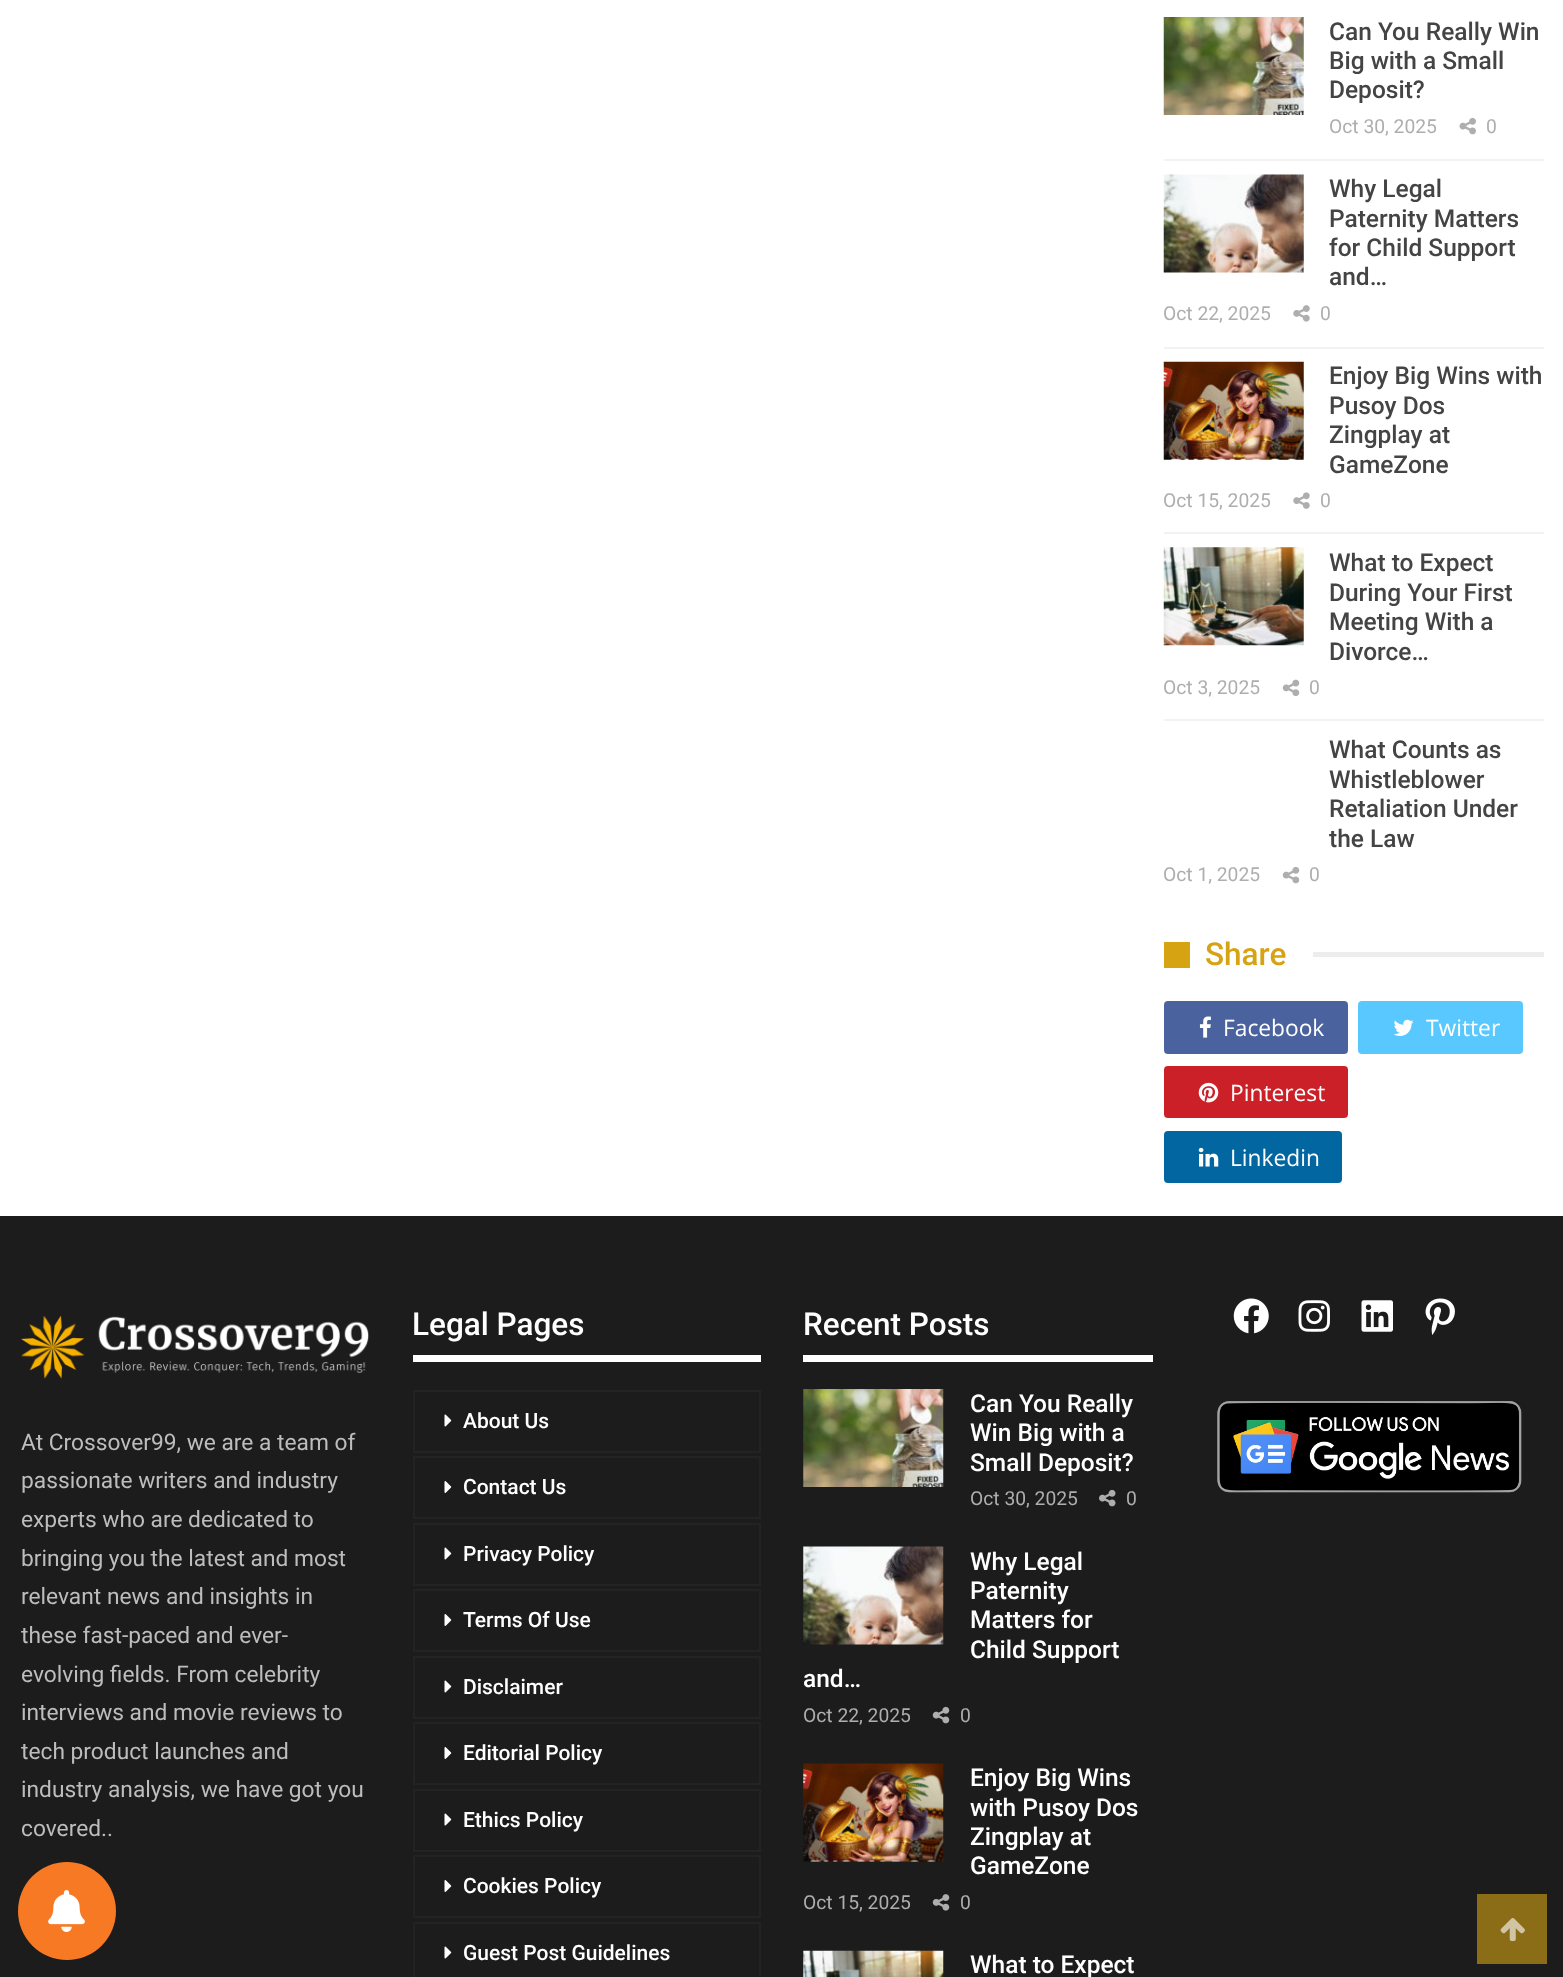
<svg xmlns="http://www.w3.org/2000/svg" width="1563" height="1977">
	<rect width="100%" height="100%" fill="#FFFFFF" />
	<rect x="1164" y="159" width="380" height="2" fill="#F2F2F2" />
	<image x="1163" y="17" width="141" height="98" href="assets/img1.png" />
	<g font-family="Roboto" font-size="24.5" font-weight="500" fill="#444444">
		<text x="1329" y="40">Can You Really Win</text>
		<text x="1329" y="69">Big with a Small</text>
		<text x="1329" y="98">Deposit?</text>
	</g>
	<text x="1329" y="133" font-family="Roboto" font-size="19.25" fill="#AEAEAE">Oct 30, 2025</text>
	<image x="1459" y="117" width="17" height="18" href="assets/img2.png" />
	<text x="1486" y="133" font-family="Roboto" font-size="19.25" fill="#AEAEAE">0</text>
	<rect x="1164" y="347" width="380" height="2" fill="#F2F2F2" />
	<image x="1163" y="174" width="141" height="99" href="assets/img3.png" />
	<g font-family="Roboto" font-size="24.5" font-weight="500" fill="#444444">
		<text x="1329" y="197">Why Legal</text>
		<text x="1329" y="227">Paternity Matters</text>
		<text x="1329" y="256">for Child Support</text>
		<text x="1329" y="285">and…</text>
	</g>
	<text x="1163" y="320" font-family="Roboto" font-size="19.25" fill="#AEAEAE">Oct 22, 2025</text>
	<image x="1293" y="305" width="17" height="17" href="assets/img4.png" />
	<text x="1320" y="320" font-family="Roboto" font-size="19.25" fill="#AEAEAE">0</text>
	<rect x="1164" y="532" width="380" height="2" fill="#F2F2F2" />
	<image x="1163" y="361" width="141" height="99" href="assets/img5.png" />
	<g font-family="Roboto" font-size="24.5" font-weight="500" fill="#444444">
		<text x="1329" y="384">Enjoy Big Wins with</text>
		<text x="1329" y="414">Pusoy Dos</text>
		<text x="1329" y="443">Zingplay at</text>
		<text x="1329" y="473">GameZone</text>
	</g>
	<text x="1163" y="507" font-family="Roboto" font-size="19.25" fill="#AEAEAE">Oct 15, 2025</text>
	<image x="1293" y="492" width="17" height="17" href="assets/img6.png" />
	<text x="1320" y="507" font-family="Roboto" font-size="19.25" fill="#AEAEAE">0</text>
	<rect x="1164" y="719" width="380" height="2" fill="#F2F2F2" />
	<image x="1163" y="547" width="141" height="99" href="assets/img7.png" />
	<g font-family="Roboto" font-size="24.5" font-weight="500" fill="#444444">
		<text x="1329" y="571">What to Expect</text>
		<text x="1329" y="601">During Your First</text>
		<text x="1329" y="630">Meeting With a</text>
		<text x="1329" y="660">Divorce…</text>
	</g>
	<text x="1163" y="694" font-family="Roboto" font-size="19.25" fill="#AEAEAE">Oct 3, 2025</text>
	<image x="1282" y="679" width="18" height="18" href="assets/img8.png" />
	<text x="1309" y="694" font-family="Roboto" font-size="19.25" fill="#AEAEAE">0</text>
	<g font-family="Roboto" font-size="24.5" font-weight="500" fill="#444444">
		<text x="1329" y="758">What Counts as</text>
		<text x="1329" y="788">Whistleblower</text>
		<text x="1329" y="817">Retaliation Under</text>
		<text x="1329" y="847">the Law</text>
	</g>
	<text x="1163" y="881" font-family="Roboto" font-size="19.25" fill="#AEAEAE">Oct 1, 2025</text>
	<image x="1282" y="866" width="18" height="18" href="assets/img9.png" />
	<text x="1309" y="881" font-family="Roboto" font-size="19.25" fill="#AEAEAE">0</text>
	<rect x="1164" y="942" width="26" height="26" fill="#D6A313" />
	<text x="1205" y="965" font-family="Roboto" font-size="31.5" font-weight="500" fill="#D6A313">Share</text>
	<rect x="1313" y="952" width="231" height="5" fill="#EDEDED" />
	<rect x="1164" y="1001" width="184" height="53" rx="4" fill="#4A639F" />
	<image x="1199" y="1016" width="12" height="22" href="assets/img10.png" />
	<text x="1223" y="1036" font-family="Open Sans" font-size="22.75" fill="#FFFFFF">Facebook</text>
	<rect x="1358" y="1001" width="165" height="53" rx="4" fill="#59C8FF" />
	<image x="1393" y="1019" width="21" height="17" href="assets/img11.png" />
	<text x="1426" y="1036" font-family="Open Sans" font-size="22.75" fill="#FFFFFF">Twitter</text>
	<rect x="1164" y="1066" width="184" height="52" rx="4" fill="#CB2027" />
	<image x="1198" y="1082" width="21" height="21" href="assets/img12.png" />
	<text x="1230" y="1101" font-family="Open Sans" font-size="22.75" fill="#FFFFFF">Pinterest</text>
	<rect x="1164" y="1131" width="178" height="52" rx="4" fill="#0266A0" />
	<image x="1198" y="1147" width="21" height="20" href="assets/img13.png" />
	<text x="1230" y="1166" font-family="Open Sans" font-size="22.75" fill="#FFFFFF">Linkedin</text>
	<rect x="0" y="1216" width="1563" height="761" fill="#1C1C1C" />
	<image x="21" y="1315" width="348" height="64" href="assets/img14.png" />
	<g font-family="Roboto" font-size="22.75" fill="#BDBDBD">
		<text x="21" y="1450">At Crossover99, we are a team of</text>
		<text x="21" y="1488">passionate writers and industry</text>
		<text x="21" y="1527">experts who are dedicated to</text>
		<text x="21" y="1566">bringing you the latest and most</text>
		<text x="21" y="1604">relevant news and insights in</text>
		<text x="21" y="1643">these fast-paced and ever-</text>
		<text x="21" y="1682">evolving fields. From celebrity</text>
		<text x="21" y="1720">interviews and movie reviews to</text>
		<text x="21" y="1759">tech product launches and</text>
		<text x="21" y="1797">industry analysis, we have got you</text>
		<text x="21" y="1836">covered..</text>
	</g>
	<text x="412" y="1335" font-family="Roboto" font-size="31.5" font-weight="500" fill="#FFFFFF">Legal Pages</text>
	<rect x="413" y="1355" width="348" height="7" fill="#FFFFFF" />
	<rect x="414" y="1391" width="346" height="61" fill="none" stroke="#232323" stroke-width="2" />
	<image x="444" y="1414" width="8" height="13" href="assets/img15.png" />
	<text x="463" y="1428" font-family="Roboto" font-size="21" font-weight="500" fill="#FFFFFF">About Us</text>
	<rect x="414" y="1457" width="346" height="61" fill="none" stroke="#232323" stroke-width="2" />
	<image x="444" y="1481" width="8" height="12" href="assets/img16.png" />
	<text x="463" y="1494" font-family="Roboto" font-size="21" font-weight="500" fill="#FFFFFF">Contact Us</text>
	<rect x="414" y="1524" width="346" height="61" fill="none" stroke="#232323" stroke-width="2" />
	<image x="444" y="1547" width="8" height="13" href="assets/img15.png" />
	<text x="463" y="1561" font-family="Roboto" font-size="21" font-weight="500" fill="#FFFFFF">Privacy Policy</text>
	<rect x="414" y="1590" width="346" height="61" fill="none" stroke="#232323" stroke-width="2" />
	<image x="444" y="1614" width="8" height="12" href="assets/img16.png" />
	<text x="463" y="1627" font-family="Roboto" font-size="21" font-weight="500" fill="#FFFFFF">Terms Of Use</text>
	<rect x="414" y="1657" width="346" height="61" fill="none" stroke="#232323" stroke-width="2" />
	<image x="444" y="1680" width="8" height="13" href="assets/img15.png" />
	<text x="463" y="1694" font-family="Roboto" font-size="21" font-weight="500" fill="#FFFFFF">Disclaimer</text>
	<rect x="414" y="1723" width="346" height="61" fill="none" stroke="#232323" stroke-width="2" />
	<image x="444" y="1747" width="8" height="12" href="assets/img16.png" />
	<text x="463" y="1760" font-family="Roboto" font-size="21" font-weight="500" fill="#FFFFFF">Editorial Policy</text>
	<rect x="414" y="1790" width="346" height="61" fill="none" stroke="#232323" stroke-width="2" />
	<image x="444" y="1813" width="8" height="13" href="assets/img15.png" />
	<text x="463" y="1827" font-family="Roboto" font-size="21" font-weight="500" fill="#FFFFFF">Ethics Policy</text>
	<rect x="414" y="1856" width="346" height="61" fill="none" stroke="#232323" stroke-width="2" />
	<image x="444" y="1880" width="8" height="12" href="assets/img16.png" />
	<text x="463" y="1893" font-family="Roboto" font-size="21" font-weight="500" fill="#FFFFFF">Cookies Policy</text>
	<rect x="414" y="1923" width="346" height="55" fill="none" stroke="#232323" stroke-width="2" />
	<image x="444" y="1946" width="8" height="13" href="assets/img15.png" />
	<text x="463" y="1960" font-family="Roboto" font-size="21" font-weight="500" fill="#FFFFFF">Guest Post Guidelines</text>
	<text x="803" y="1335" font-family="Roboto" font-size="31.5" font-weight="500" fill="#FFFFFF">Recent Posts</text>
	<rect x="803" y="1355" width="350" height="7" fill="#FFFFFF" />
	<image x="803" y="1389" width="141" height="98" href="assets/img17.png" />
	<g font-family="Roboto" font-size="24.5" font-weight="500" fill="#FFFFFF">
		<text x="970" y="1412">Can You Really</text>
		<text x="970" y="1441">Win Big with a</text>
		<text x="970" y="1471">Small Deposit?</text>
	</g>
	<text x="970" y="1505" font-family="Roboto" font-size="19.25" fill="#AEAEAE">Oct 30, 2025</text>
	<image x="1099" y="1489" width="17" height="18" href="assets/img18.png" />
	<text x="1126" y="1505" font-family="Roboto" font-size="19.25" fill="#AEAEAE">0</text>
	<image x="803" y="1546" width="141" height="99" href="assets/img19.png" />
	<g font-family="Roboto" font-size="24.5" font-weight="500" fill="#FFFFFF">
		<text x="970" y="1570">Why Legal</text>
		<text x="970" y="1599">Paternity</text>
		<text x="970" y="1628">Matters for</text>
		<text x="970" y="1658">Child Support</text>
		<text x="803" y="1687">and…</text>
	</g>
	<text x="803" y="1722" font-family="Roboto" font-size="19.25" fill="#AEAEAE">Oct 22, 2025</text>
	<image x="932" y="1706" width="18" height="18" href="assets/img20.png" />
	<text x="960" y="1722" font-family="Roboto" font-size="19.25" fill="#AEAEAE">0</text>
	<image x="803" y="1763" width="141" height="99" href="assets/img21.png" />
	<g font-family="Roboto" font-size="24.5" font-weight="500" fill="#FFFFFF">
		<text x="970" y="1786">Enjoy Big Wins</text>
		<text x="970" y="1816">with Pusoy Dos</text>
		<text x="970" y="1845">Zingplay at</text>
		<text x="970" y="1874">GameZone</text>
	</g>
	<text x="803" y="1909" font-family="Roboto" font-size="19.25" fill="#AEAEAE">Oct 15, 2025</text>
	<image x="932" y="1894" width="18" height="17" href="assets/img22.png" />
	<text x="960" y="1909" font-family="Roboto" font-size="19.25" fill="#AEAEAE">0</text>
	<image x="803" y="1950" width="141" height="27" href="assets/img23.png" />
	<text x="970" y="1973" font-family="Roboto" font-size="24.5" font-weight="500" fill="#FFFFFF">What to Expect</text>
	<image x="1233" y="1298" width="36" height="36" href="assets/img24.png" />
	<image x="1298" y="1300" width="32" height="32" href="assets/img25.png" />
	<image x="1361" y="1300" width="32" height="32" href="assets/img26.png" />
	<image x="1425" y="1298" width="30" height="37" href="assets/img27.png" />
	<image x="1217" y="1401" width="305" height="92" href="assets/img28.png" />
	<circle cx="67" cy="1911" r="49" fill="#F77924" />
	<image x="48" y="1890" width="37" height="42" href="assets/img29.png" />
	<rect x="1477" y="1894" width="70" height="70" fill="#8C6D17" />
	<image x="1500" y="1918" width="25" height="23" href="assets/img30.png" />
</svg>
